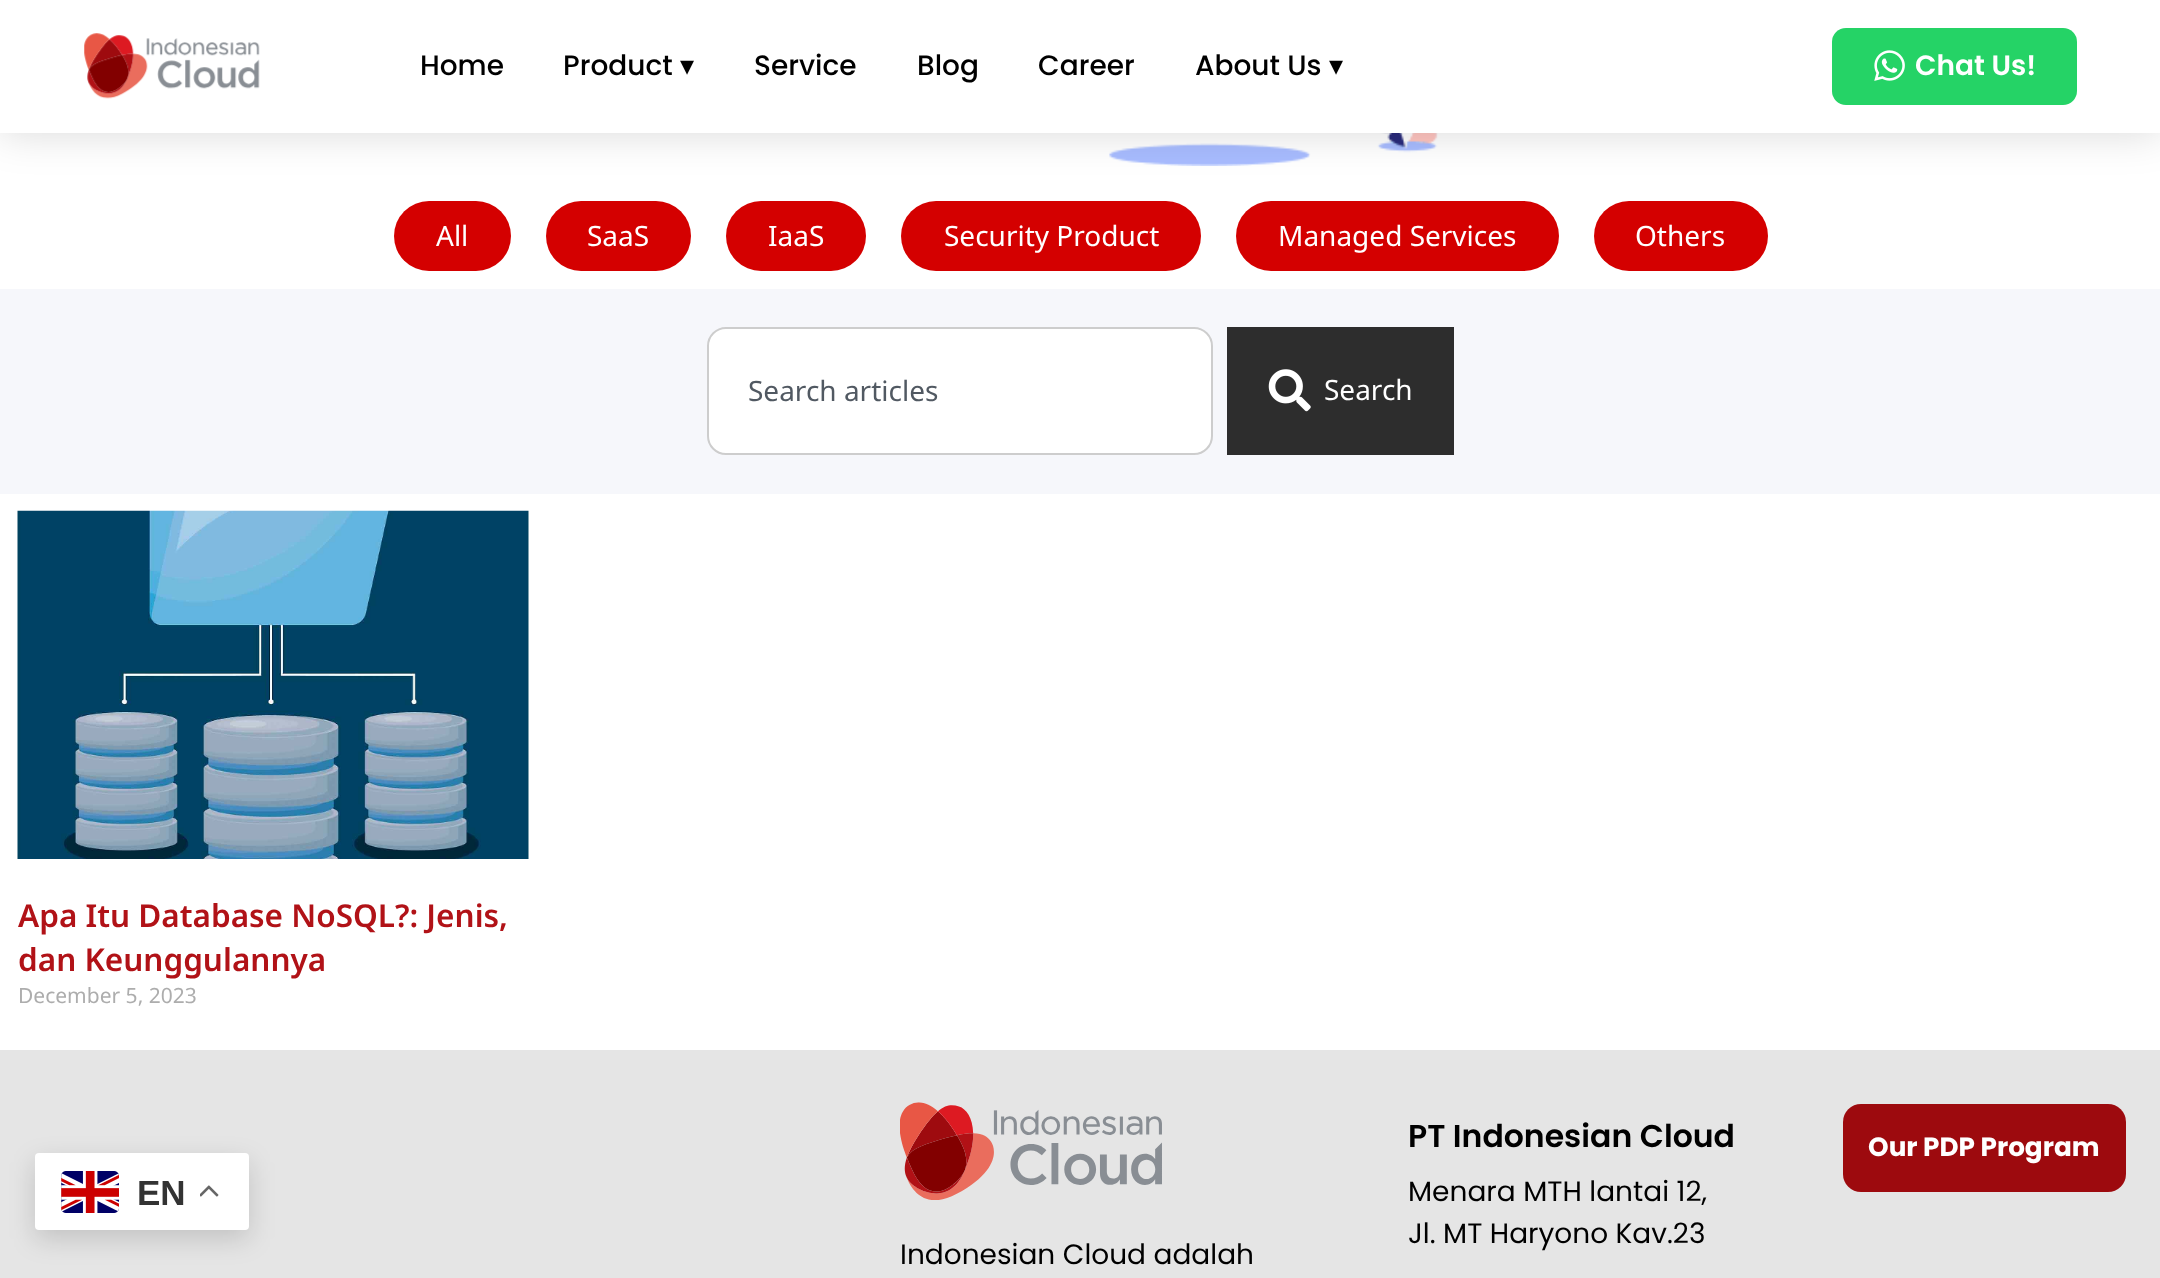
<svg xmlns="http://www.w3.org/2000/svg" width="2160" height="1278">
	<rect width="100%" height="100%" fill="#FFFFFF" />
	<image x="1109" y="133" width="329" height="33" href="assets/img3.png" />
	<rect x="0" y="0" width="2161" height="133" fill="#000000" fill-opacity="0.15" filter="blur(21px)" />
	<rect x="0" y="0" width="2160" height="133" fill="#FFFFFF" />
	<image x="84" y="33" width="176" height="66" href="assets/img1.png" />
	<g font-family="Poppins" font-size="28" font-weight="500" fill="#000000">
		<text x="420" y="75">Home</text>
		<text x="563" y="75">Product</text>
	</g>
	<text x="680" y="75" font-family="DejaVu Sans" font-size="28" fill="#000000">▾</text>
	<g font-family="Poppins" font-size="28" font-weight="500" fill="#000000">
		<text x="754" y="75">Service</text>
		<text x="917" y="75">Blog</text>
		<text x="1038" y="75">Career</text>
		<text x="1195" y="75">About Us</text>
	</g>
	<text x="1329" y="75" font-family="DejaVu Sans" font-size="28" fill="#000000">▾</text>
	<rect x="1832" y="28" width="245" height="77" rx="14" fill="#25D366" />
	<image x="1874" y="50" width="31" height="31" href="assets/img2.png" />
	<text x="1915" y="75" font-family="Poppins" font-size="28" font-weight="600" fill="#FFFFFF">Chat Us!</text>
	<rect x="394" y="201" width="117" height="70" rx="35" fill="#D40000" />
	<text x="436" y="246" font-family="Noto Sans" font-size="28" fill="#FFFFFF">All</text>
	<rect x="546" y="201" width="145" height="70" rx="35" fill="#D40000" />
	<text x="587" y="246" font-family="Noto Sans" font-size="28" fill="#FFFFFF">SaaS</text>
	<rect x="726" y="201" width="140" height="70" rx="35" fill="#D40000" />
	<text x="768" y="246" font-family="Noto Sans" font-size="28" fill="#FFFFFF">IaaS</text>
	<rect x="901" y="201" width="300" height="70" rx="35" fill="#D40000" />
	<text x="944" y="246" font-family="Noto Sans" font-size="28" fill="#FFFFFF">Security Product</text>
	<rect x="1236" y="201" width="323" height="70" rx="35" fill="#D40000" />
	<text x="1278" y="246" font-family="Noto Sans" font-size="28" fill="#FFFFFF">Managed Services</text>
	<rect x="1594" y="201" width="174" height="70" rx="35" fill="#D40000" />
	<text x="1635" y="246" font-family="Noto Sans" font-size="28" fill="#FFFFFF">Others</text>
	<rect x="0" y="289" width="2160" height="205" fill="#F6F7FB" />
	<rect x="708" y="328" width="504" height="126" rx="18" fill="#FFFFFF" stroke="#CDCDCD" stroke-width="2" />
	<text x="748" y="401" font-family="Noto Sans" font-size="28" fill="#515962">Search articles</text>
	<rect x="1227" y="327" width="227" height="128" fill="#2D2D2D" />
	<image x="1268" y="369" width="43" height="43" href="assets/img4.png" />
	<text x="1324" y="400" font-family="Noto Sans" font-size="28" fill="#FFFFFF">Search</text>
	<image x="17" y="510" width="512" height="349" href="assets/img5.png" />
	<g font-family="Noto Sans" font-size="31.5" font-weight="600" fill="#B11217">
		<text x="18" y="927">Apa Itu Database NoSQL?: Jenis,</text>
		<text x="18" y="971">dan Keunggulannya</text>
	</g>
	<text x="18" y="1003" font-family="Noto Sans" font-size="21" fill="#ADADAD">December 5, 2023</text>
	<rect x="0" y="1050" width="2160" height="228" fill="#E5E5E5" />
	<rect x="35" y="1162" width="214" height="77" rx="4" fill="#000000" fill-opacity="0.15" filter="blur(13px)" />
	<rect x="35" y="1153" width="214" height="77" rx="4" fill="#FFFFFF" />
	<image x="61" y="1171" width="58" height="42" href="assets/img6.png" />
	<text x="137" y="1205" font-family="Liberation Sans" font-size="35" font-weight="700" fill="#333333">EN</text>
	<image x="200" y="1185" width="19" height="12" href="assets/img7.png" />
	<text x="1408" y="1147" font-family="Poppins" font-size="31.5" font-weight="600" fill="#000000">PT Indonesian Cloud</text>
	<g font-family="Poppins" font-size="28" fill="#000000">
		<text x="1408" y="1201">Menara MTH lantai 12,</text>
		<text x="1408" y="1243">Jl. MT Haryono Kav.23</text>
	</g>
	<image x="900" y="1102" width="262" height="98" href="assets/img8.png" />
	<text x="900" y="1264" font-family="Poppins" font-size="28" fill="#000000">Indonesian Cloud adalah</text>
	<rect x="1843" y="1104" width="283" height="88" rx="18" fill="#9D0A0E" />
	<text x="1868" y="1156" font-family="Poppins" font-size="26.25" font-weight="700" fill="#FFFFFF">Our PDP Program</text>
</svg>
